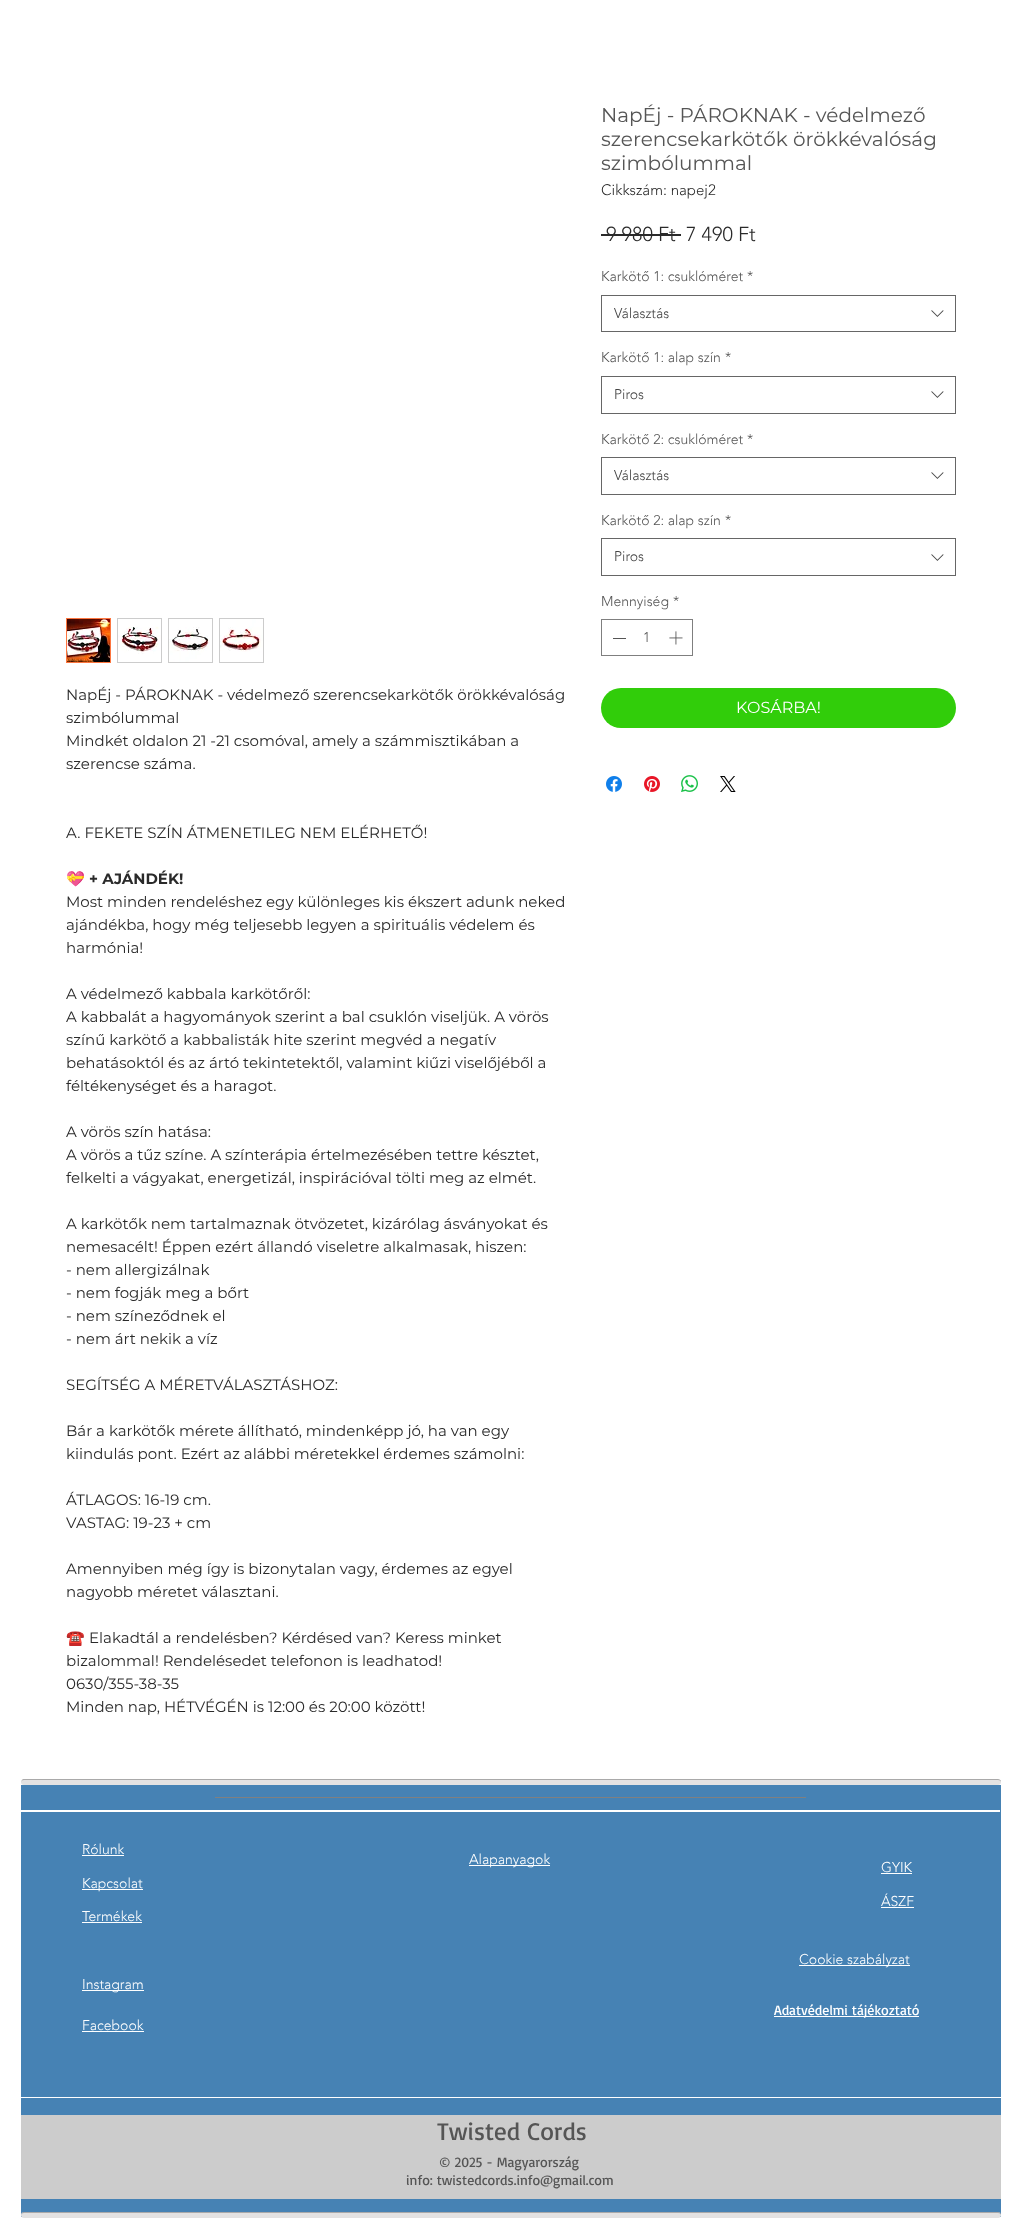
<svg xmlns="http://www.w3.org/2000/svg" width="1022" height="2218">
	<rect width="100%" height="100%" fill="#FFFFFF" />
	<g font-family="Montserrat" font-size="20" fill="#555555">
		<text x="601" y="122">NapÉj - PÁROKNAK - védelmező</text>
		<text x="601" y="146">szerencsekarkötők örökkévalóság</text>
		<text x="601" y="170">szimbólummal</text>
	</g>
	<text x="601" y="195" font-family="'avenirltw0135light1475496'" font-size="15" font-weight="300" fill="#2A2A2A">Cikkszám: napej2</text>
	<text x="606" y="241" font-family="'avenirltw0135light1475496'" font-size="20" font-weight="300" fill="#2A2A2A">9 980 Ft</text>
	<rect x="601" y="234" width="80" height="2" fill="#2A2A2A" />
	<text x="686" y="241" font-family="'avenirltw0135light1475496'" font-size="20" font-weight="300" fill="#2A2A2A">7 490 Ft</text>
	<g font-family="'avenirltw0135light1475496'" font-size="14" font-weight="300" fill="#555555">
		<text x="601" y="281">Karkötő 1: csuklóméret</text>
		<text x="747" y="281">*</text>
	</g>
	<rect x="601.5" y="295.5" width="354" height="36" fill="none" stroke="#666666" />
	<text x="614" y="318" font-family="'avenirltw0135light1475496'" font-size="14" font-weight="300" fill="#444444">Választás</text>
	<image x="931" y="310" width="13" height="7" href="assets/img1.png" />
	<g font-family="'avenirltw0135light1475496'" font-size="14" font-weight="300" fill="#555555">
		<text x="601" y="362">Karkötő 1: alap szín</text>
		<text x="725" y="362">*</text>
	</g>
	<rect x="601.5" y="376.5" width="354" height="37" fill="none" stroke="#666666" />
	<text x="614" y="399" font-family="'avenirltw0135light1475496'" font-size="14" font-weight="300" fill="#444444">Piros</text>
	<image x="931" y="391" width="13" height="7" href="assets/img1.png" />
	<g font-family="'avenirltw0135light1475496'" font-size="14" font-weight="300" fill="#555555">
		<text x="601" y="444">Karkötő 2: csuklóméret</text>
		<text x="747" y="444">*</text>
	</g>
	<rect x="601.5" y="457.5" width="354" height="37" fill="none" stroke="#666666" />
	<text x="614" y="480" font-family="'avenirltw0135light1475496'" font-size="14" font-weight="300" fill="#444444">Választás</text>
	<image x="931" y="472" width="13" height="7" href="assets/img1.png" />
	<g font-family="'avenirltw0135light1475496'" font-size="14" font-weight="300" fill="#555555">
		<text x="601" y="525">Karkötő 2: alap szín</text>
		<text x="725" y="525">*</text>
	</g>
	<rect x="601.5" y="538.5" width="354" height="37" fill="none" stroke="#666666" />
	<text x="614" y="561" font-family="'avenirltw0135light1475496'" font-size="14" font-weight="300" fill="#444444">Piros</text>
	<image x="931" y="554" width="13" height="7" href="assets/img1.png" />
	<g font-family="'avenirltw0135light1475496'" font-size="14" font-weight="300" fill="#555555">
		<text x="601" y="606">Mennyiség</text>
		<text x="673" y="606">*</text>
	</g>
	<rect x="601.5" y="619.5" width="91" height="36" fill="none" stroke="#7F7F7F" />
	<rect x="613" y="638" width="13" height="1" fill="#555555" />
	<text x="643" y="642" font-family="'avenirltw0135light1475496'" font-size="14" font-weight="300" fill="#555555">1</text>
	<image x="669" y="631" width="14" height="14" href="assets/img2.png" />
	<rect x="601" y="688" width="355" height="40" rx="20" fill="#31CD0A" />
	<text x="736" y="713" font-family="Montserrat" font-size="16" fill="#FFFFFF">KOSÁRBA!</text>
	<image x="606" y="776" width="16" height="16" href="assets/img3.png" />
	<image x="644" y="776" width="16" height="16" href="assets/img4.png" />
	<image x="681" y="775" width="17" height="17" href="assets/img5.png" />
	<image x="720" y="776" width="16" height="16" href="assets/img6.png" />
	<rect x="66.5" y="618.5" width="44" height="44" fill="none" stroke="#FD763F" />
	<image x="67" y="619" width="43" height="43" href="assets/img7.png" />
	<rect x="117" y="618" width="45" height="45" fill="#CCCCCC" />
	<image x="118" y="619" width="43" height="43" href="assets/img8.png" />
	<rect x="168" y="618" width="45" height="45" fill="#CCCCCC" />
	<image x="169" y="619" width="43" height="43" href="assets/img9.png" />
	<rect x="219" y="618" width="45" height="45" fill="#CCCCCC" />
	<image x="220" y="619" width="43" height="43" href="assets/img10.png" />
	<g font-family="Montserrat" font-size="15" fill="#2A2A2A">
		<text x="66" y="700">NapÉj - PÁROKNAK - védelmező szerencsekarkötők örökkévalóság</text>
		<text x="66" y="723">szimbólummal</text>
		<text x="66" y="746">Mindkét oldalon 21 -21 csomóval, amely a számmisztikában a</text>
		<text x="66" y="769">szerencse száma.</text>
		<text x="66" y="838">A. FEKETE SZÍN ÁTMENETILEG NEM ELÉRHETŐ!</text>
	</g>
	<text x="66" y="884" font-family="Noto Color Emoji" font-size="15" fill="#2A2A2A">💝</text>
	<text x="89" y="884" font-family="Montserrat" font-size="15" font-weight="700" fill="#2A2A2A">+ AJÁNDÉK!</text>
	<g font-family="Montserrat" font-size="15" fill="#2A2A2A">
		<text x="66" y="907">Most minden rendeléshez egy különleges kis ékszert adunk neked</text>
		<text x="66" y="930">ajándékba, hogy még teljesebb legyen a spirituális védelem és</text>
		<text x="66" y="953">harmónia!</text>
		<text x="66" y="999">A védelmező kabbala karkötőről:</text>
		<text x="66" y="1022">A kabbalát a hagyományok szerint a bal csuklón viseljük. A vörös</text>
		<text x="66" y="1045">színű karkötő a kabbalisták hite szerint megvéd a negatív</text>
		<text x="66" y="1068">behatásoktól és az ártó tekintetektől, valamint kiűzi viselőjéből a</text>
		<text x="66" y="1091">féltékenységet és a haragot.</text>
		<text x="66" y="1137">A vörös szín hatása:</text>
		<text x="66" y="1160">A vörös a tűz színe. A színterápia értelmezésében tettre késztet,</text>
		<text x="66" y="1183">felkelti a vágyakat, energetizál, inspirációval tölti meg az elmét.</text>
		<text x="66" y="1229">A karkötők nem tartalmaznak ötvözetet, kizárólag ásványokat és</text>
		<text x="66" y="1252">nemesacélt! Éppen ezért állandó viseletre alkalmasak, hiszen:</text>
		<text x="66" y="1275">- nem allergizálnak</text>
		<text x="66" y="1298">- nem fogják meg a bőrt</text>
		<text x="66" y="1321">- nem színeződnek el</text>
		<text x="66" y="1344">- nem árt nekik a víz</text>
		<text x="66" y="1390">SEGÍTSÉG A MÉRETVÁLASZTÁSHOZ:</text>
		<text x="66" y="1436">Bár a karkötők mérete állítható, mindenképp jó, ha van egy</text>
		<text x="66" y="1459">kiindulás pont. Ezért az alábbi méretekkel érdemes számolni:</text>
		<text x="66" y="1505">ÁTLAGOS: 16-19 cm.</text>
		<text x="66" y="1528">VASTAG: 19-23 + cm</text>
		<text x="66" y="1574">Amennyiben még így is bizonytalan vagy, érdemes az egyel</text>
		<text x="66" y="1597">nagyobb méretet választani.</text>
	</g>
	<text x="66" y="1643" font-family="Noto Color Emoji" font-size="15" fill="#2A2A2A">☎️</text>
	<g font-family="Montserrat" font-size="15" fill="#2A2A2A">
		<text x="89" y="1643">Elakadtál a rendelésben? Kérdésed van? Keress minket</text>
		<text x="66" y="1666">bizalommal! Rendelésedet telefonon is leadhatod!</text>
		<text x="66" y="1689">0630/355-38-35</text>
		<text x="66" y="1712">Minden nap, HÉTVÉGÉN is 12:00 és 20:00 között!</text>
	</g>
	<rect x="21" y="1779" width="980" height="6" rx="3" fill="#E3E2E2" />
	<path d="M24 1780H998C1000 1780 1001 1781 1001 1782V1781C1001 1780 999 1779 998 1779H23L22 1780L21 1782C21 1781 22 1780 24 1780Z" fill="#000000" fill-opacity="0.25" />
	<rect x="21" y="1785" width="980" height="432" fill="#4682B4" />
	<rect x="215" y="1797" width="591" height="1" fill="#808080" />
	<rect x="20" y="1810" width="980" height="2" fill="#FFFFFF" />
	<text x="82" y="1854" font-family="'avenirltw0135light1475496'" font-size="14" font-weight="300" fill="#FFFFFF">Rólunk</text>
	<rect x="82" y="1855" width="42" height="1" fill="#FFFFFF" />
	<rect x="82" y="1889" width="61" height="1" fill="#FFFFFF" />
	<g font-family="'avenirltw0135light1475496'" font-size="14" font-weight="300" fill="#FFFFFF">
		<text x="82" y="1888">Kapcsolat</text>
		<text x="82" y="1921">Termékek</text>
	</g>
	<rect x="82" y="1922" width="60" height="1" fill="#FFFFFF" />
	<rect x="469" y="1865" width="81" height="1" fill="#FFFFFF" />
	<g font-family="'avenirltw0135light1475496'" font-size="14" font-weight="300" fill="#FFFFFF">
		<text x="469" y="1864">Alapanyagok</text>
		<text x="881" y="1872">GYIK</text>
	</g>
	<rect x="881" y="1873" width="31" height="1" fill="#FFFFFF" />
	<text x="881" y="1906" font-family="'avenirltw0135light1475496'" font-size="14" font-weight="300" fill="#FFFFFF">ÁSZF</text>
	<rect x="881" y="1907" width="33" height="1" fill="#FFFFFF" />
	<rect x="799" y="1965" width="111" height="1" fill="#FFFFFF" />
	<text x="799" y="1964" font-family="'avenirltw0135light1475496'" font-size="14" font-weight="300" fill="#FFFFFF">Cookie szabályzat</text>
	<rect x="82" y="1990" width="62" height="1" fill="#FFFFFF" />
	<text x="82" y="1989" font-family="'avenirltw0135light1475496'" font-size="14" font-weight="300" fill="#FFFFFF">Instagram</text>
	<rect x="774" y="2016" width="145" height="1" fill="#FFFFFF" />
	<text x="774" y="2015" font-family="Basic" font-size="14" fill="#FFFFFF">Adatvédelmi tájékoztató</text>
	<text x="82" y="2030" font-family="'avenirltw0135light1475496'" font-size="14" font-weight="300" fill="#FFFFFF">Facebook</text>
	<rect x="82" y="2031" width="62" height="1" fill="#FFFFFF" />
	<rect x="21" y="2097" width="980" height="1" fill="#FFFFFF" />
	<rect x="21" y="2115" width="980" height="84" fill="#CCCCCC" />
	<text x="437" y="2140" font-family="Basic" font-size="25" fill="#555555">Twisted Cords</text>
	<g font-family="Basic" font-size="14" fill="#555555">
		<text x="439" y="2167">© 2025 - Magyarország</text>
		<text x="406" y="2185">info: twistedcords.info@gmail.com</text>
	</g>
	<path d="M21 2216L22 2218L24 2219H998L1000 2218L1001 2216C1001 2217 999 2218 998 2218H24C23 2218 21 2217 21 2216Z" fill="#FFFFFF" />
	<rect x="21" y="2212" width="980" height="6" rx="3" fill="#E3E2E2" />
	<path d="M24 2213H998C1000 2213 1001 2214 1001 2215V2214C1001 2213 999 2212 998 2212H23L22 2213L21 2215C21 2214 22 2213 24 2213Z" fill="#000000" fill-opacity="0.25" />
</svg>
